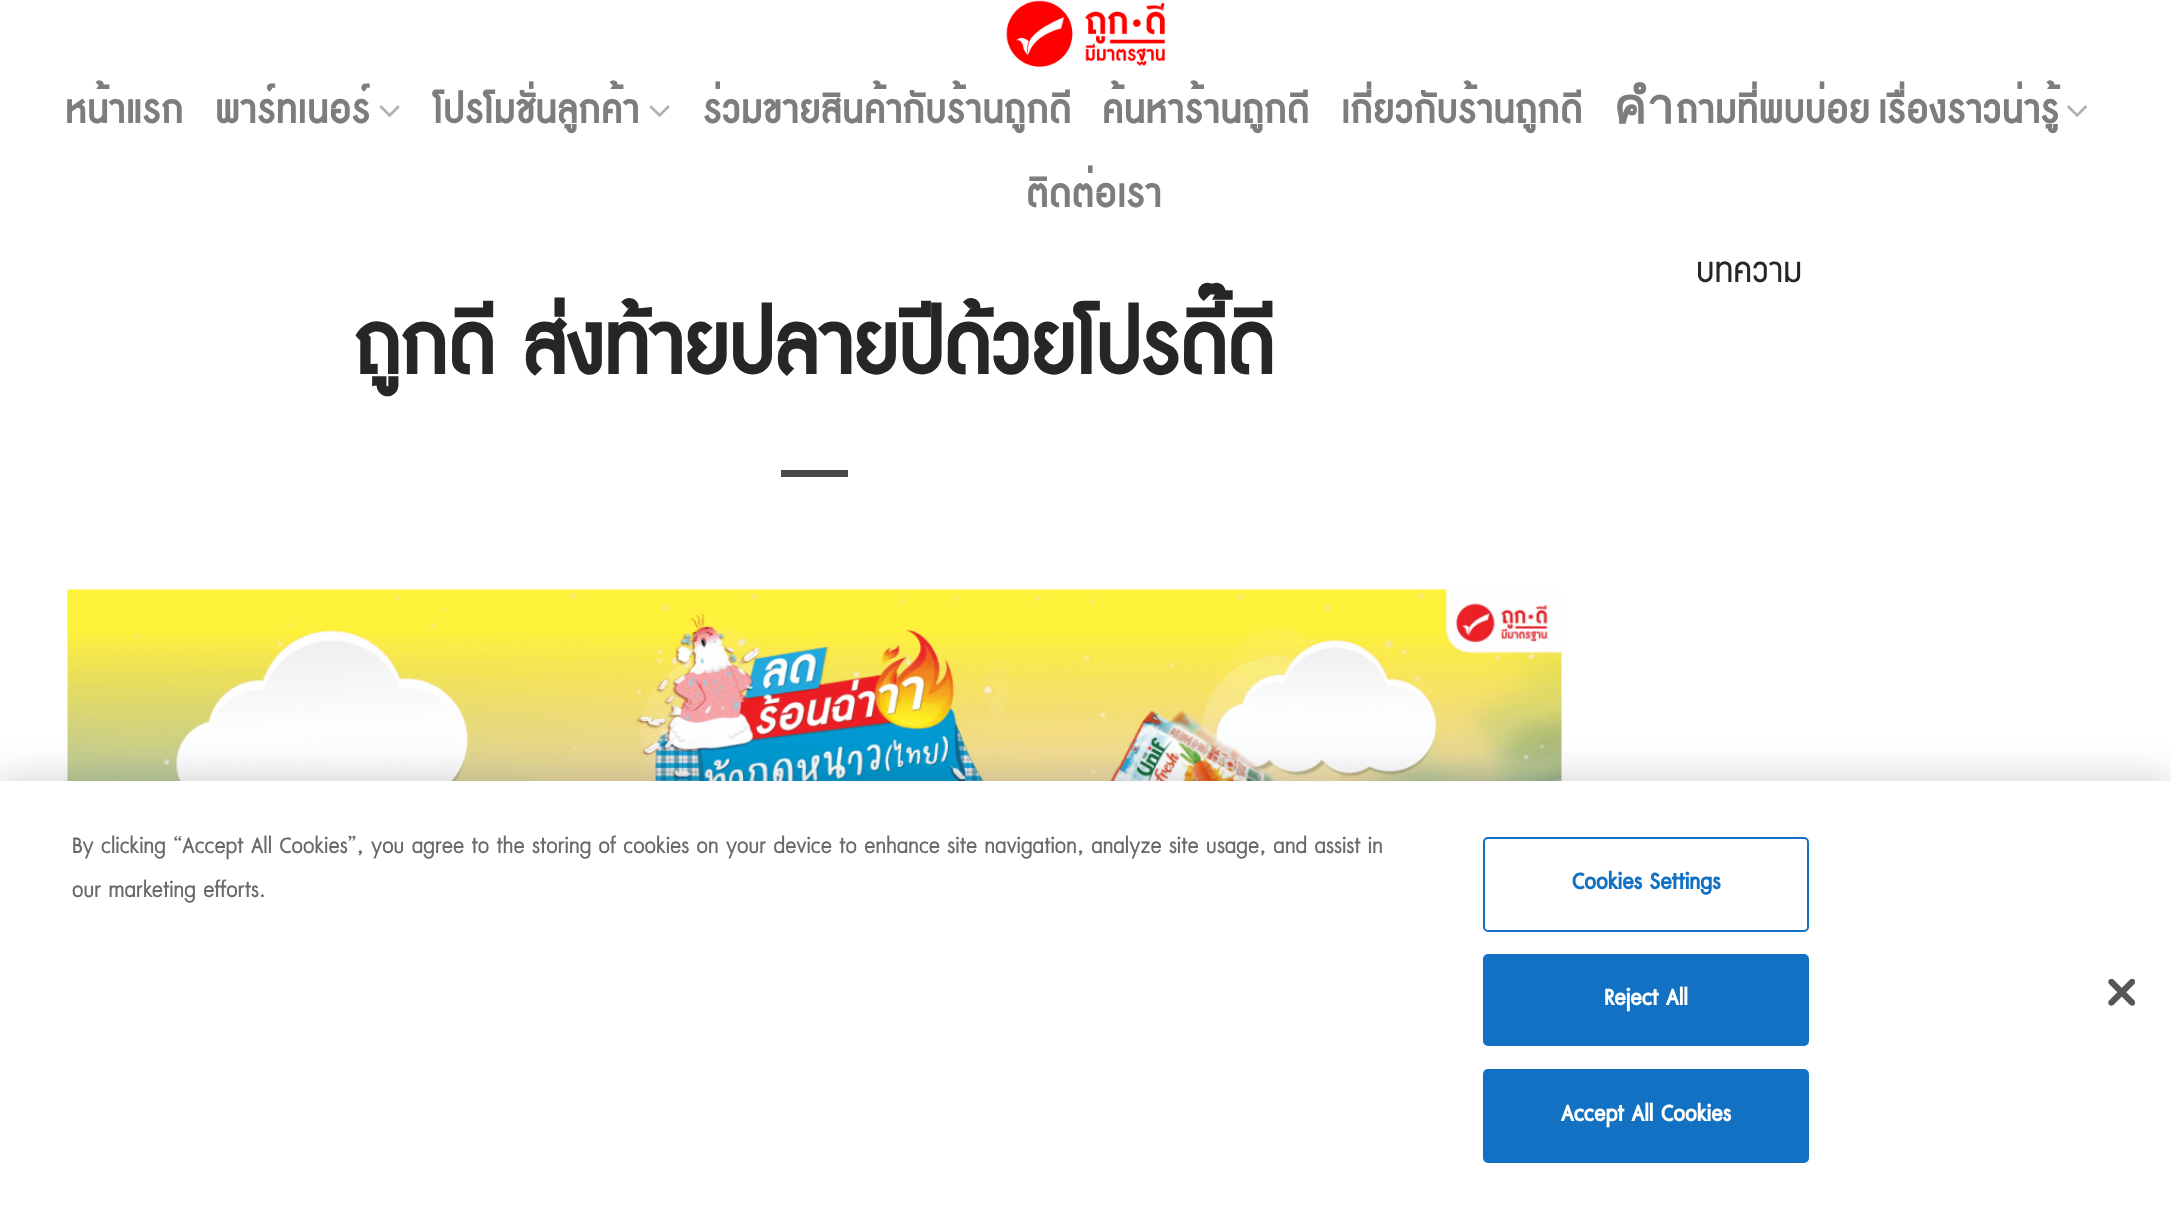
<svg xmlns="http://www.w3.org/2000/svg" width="2171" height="1207">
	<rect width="100%" height="100%" fill="#FFFFFF" />
	<image x="1006" y="0" width="159" height="67" href="assets/img1.png" />
	<g font-family="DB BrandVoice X" font-size="49.5" font-weight="700" letter-spacing="1" fill="#7D7D7D">
		<text x="65" y="123">หน้าแรก</text>
		<text x="215" y="123">พาร์ทเนอร์</text>
	</g>
	<image x="379" y="105" width="21" height="12" href="assets/img2.png" />
	<text x="433" y="123" font-family="DB BrandVoice X" font-size="49.5" font-weight="700" letter-spacing="1" fill="#7D7D7D">โปรโมชั่นลูกค้า</text>
	<image x="649" y="105" width="21" height="12" href="assets/img2.png" />
	<g font-family="DB BrandVoice X" font-size="49.5" font-weight="700" letter-spacing="1" fill="#7D7D7D">
		<text x="703" y="123">ร่วมขายสินค้ากับร้านถูกดี</text>
		<text x="1102" y="123">ค้นหาร้านถูกดี</text>
		<text x="1341" y="123">เกี่ยวกับร้านถูกดี</text>
		<text x="1614" y="123">คำถามที่พบบ่อย</text>
		<text x="1878" y="123">เรื่องราวน่ารู้</text>
	</g>
	<image x="2067" y="105" width="20" height="12" href="assets/img3.png" />
	<text x="1026" y="207" font-family="DB BrandVoice X" font-size="49.5" font-weight="700" letter-spacing="1" fill="#7D7D7D">ติดต่อเรา</text>
	<text x="1696" y="282" font-family="DB BrandVoice X" font-size="45" fill="#262626">บทความ</text>
	<text x="354" y="374" font-family="DB BrandVoice X" font-size="108" font-weight="700" fill="#262626">ถูกดี ส่งท้ายปลายปีด้วยโปรดี๊ดี</text>
	<rect x="781" y="470" width="67" height="7" fill="#494949" />
	<image x="67" y="589" width="1495" height="192" href="assets/img4.png" />
	<rect x="0" y="781" width="2171" height="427" fill="#000000" fill-opacity="0.2" filter="blur(20px)" />
	<rect x="0" y="781" width="2171" height="426" fill="#FFFFFF" />
	<g font-family="DB BrandVoice X" font-size="29.25" fill="#696969">
		<text x="72" y="853">By clicking “Accept All Cookies”, you agree to the storing of cookies on your device to enhance site navigation, analyze site usage, and assist in</text>
		<text x="72" y="897">our marketing efforts.</text>
	</g>
	<rect x="1484" y="838" width="324" height="93" rx="4" fill="none" stroke="#1371C3" stroke-width="2" />
	<text x="1572" y="889" font-family="DB BrandVoice X" font-size="29.25" font-weight="700" letter-spacing="0.25" fill="#1371C3">Cookies Settings</text>
	<rect x="1484" y="955" width="324" height="90" rx="4" fill="#1371C3" stroke="#1371C3" stroke-width="2" />
	<text x="1604" y="1005" font-family="DB BrandVoice X" font-size="29.25" font-weight="700" letter-spacing="0.25" fill="#FFFFFF">Reject All</text>
	<rect x="1484" y="1070" width="324" height="92" rx="4" fill="#1371C3" stroke="#1371C3" stroke-width="2" />
	<text x="1561" y="1121" font-family="DB BrandVoice X" font-size="29.25" font-weight="700" letter-spacing="0.25" fill="#FFFFFF">Accept All Cookies</text>
	<image x="2108" y="979" width="27" height="27" href="assets/img5.png" />
</svg>
